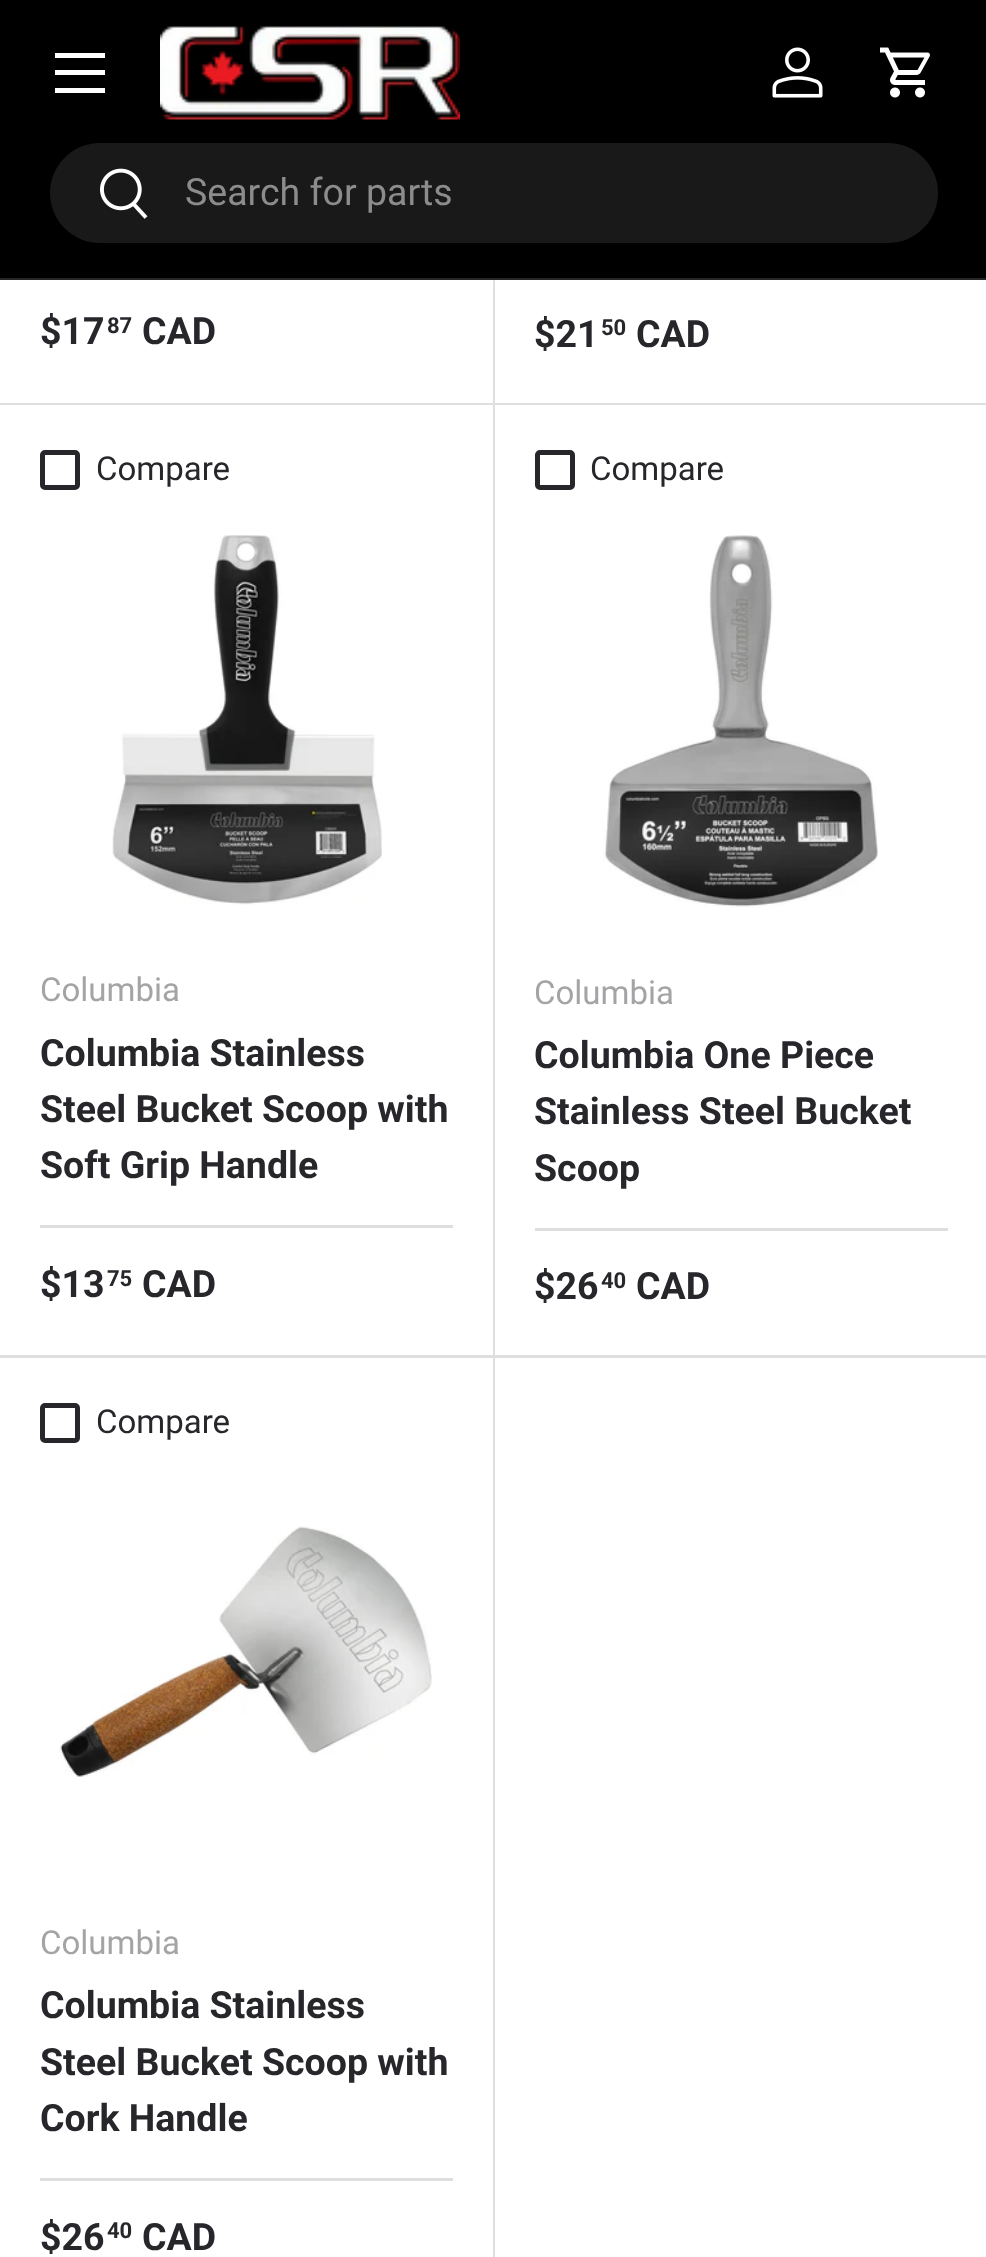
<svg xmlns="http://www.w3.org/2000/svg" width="986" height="2257">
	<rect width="100%" height="100%" fill="#FFFFFF" />
	<path d="M495-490V405L492 402V-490Z" fill="#DFDFDF" />
	<rect x="0" y="0" width="986" height="280" fill="#000000" />
	<path d="M495 405H0V402H492Z" fill="#2A2B2A" fill-opacity="0.15" />
	<rect x="0" y="280" width="493" height="123" fill="#FFFFFF" />
	<rect x="0" y="278" width="986" height="3" fill="#FFFFFF" fill-opacity="0.15" />
	<rect x="55" y="53" width="50" height="5" fill="#FFFFFF" />
	<rect x="55" y="88" width="50" height="5" fill="#FFFFFF" />
	<rect x="55" y="70" width="50" height="5" fill="#FFFFFF" />
	<image x="160" y="26" width="300" height="94" href="assets/img1.png" />
	<image x="772" y="47" width="51" height="51" href="assets/img2.png" />
	<image x="880" y="47" width="50" height="51" href="assets/img3.png" />
	<rect x="50" y="143" width="888" height="100" rx="50" fill="#191919" />
	<image x="100" y="168" width="48" height="51" href="assets/img4.png" />
	<text x="185" y="205" font-family="Roboto" font-size="37.5" fill="#8C8C8C">Search for parts</text>
	<text x="40" y="344" font-family="Roboto" font-size="37.5" font-weight="700" fill="#26262B">$17</text>
	<text x="107" y="333" font-family="Roboto" font-size="22" font-weight="700" fill="#26262B">87</text>
	<text x="142" y="344" font-family="Roboto" font-size="37.5" font-weight="700" fill="#26262B">CAD</text>
	<rect x="495" y="403" width="491" height="2" fill="#DFDFDF" />
	<text x="534" y="347" font-family="Roboto" font-size="37.5" font-weight="700" fill="#26262B">$21</text>
	<text x="601" y="335" font-family="Roboto" font-size="22" font-weight="700" fill="#26262B">50</text>
	<text x="636" y="347" font-family="Roboto" font-size="37.5" font-weight="700" fill="#26262B">CAD</text>
	<path d="M495 405V1358L492 1355V405Z" fill="#DFDFDF" />
	<path d="M495 1358H0V1355H492Z" fill="#2A2B2A" fill-opacity="0.15" />
	<rect x="492" y="405" width="1" height="950" fill="#FFFFFF" />
	<rect x="42.5" y="452.5" width="35" height="35" rx="2.5" fill="none" stroke="#26262B" stroke-width="5" />
	<text x="96" y="480" font-family="Roboto" font-size="33" fill="#26262B">Compare</text>
	<image x="112" y="535" width="270" height="370" href="assets/img5.png" />
	<text x="40" y="1001" font-family="Roboto" font-size="33" fill="#A4A4A6">Columbia</text>
	<g font-family="Roboto" font-size="37.5" font-weight="700" fill="#26262B">
		<text x="40" y="1066">Columbia Stainless</text>
		<text x="40" y="1122">Steel Bucket Scoop with</text>
		<text x="40" y="1178">Soft Grip Handle</text>
	</g>
	<rect x="40" y="1225" width="413" height="3" fill="#DEDEDF" />
	<text x="40" y="1297" font-family="Roboto" font-size="37.5" font-weight="700" fill="#26262B">$13</text>
	<text x="107" y="1286" font-family="Roboto" font-size="22" font-weight="700" fill="#26262B">75</text>
	<text x="142" y="1297" font-family="Roboto" font-size="37.5" font-weight="700" fill="#26262B">CAD</text>
	<rect x="495" y="1355" width="491" height="3" fill="#DFDFDF" />
	<rect x="537.5" y="452.5" width="35" height="35" rx="2.5" fill="none" stroke="#26262B" stroke-width="5" />
	<text x="590" y="480" font-family="Roboto" font-size="33" fill="#26262B">Compare</text>
	<image x="603" y="535" width="275" height="372" href="assets/img6.png" />
	<text x="534" y="1004" font-family="Roboto" font-size="33" fill="#A4A4A6">Columbia</text>
	<g font-family="Roboto" font-size="37.5" font-weight="700" fill="#26262B">
		<text x="534" y="1068">Columbia One Piece</text>
		<text x="534" y="1124">Stainless Steel Bucket</text>
		<text x="534" y="1181">Scoop</text>
	</g>
	<rect x="535" y="1228" width="413" height="3" fill="#DEDEDF" />
	<text x="534" y="1299" font-family="Roboto" font-size="37.5" font-weight="700" fill="#26262B">$26</text>
	<text x="601" y="1288" font-family="Roboto" font-size="22" font-weight="700" fill="#26262B">40</text>
	<text x="636" y="1299" font-family="Roboto" font-size="37.5" font-weight="700" fill="#26262B">CAD</text>
	<path d="M495 1358V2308L492 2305V1358Z" fill="#DFDFDF" />
	<rect x="492" y="1358" width="1" height="899" fill="#FFFFFF" />
	<rect x="42.5" y="1405.5" width="35" height="35" rx="2.5" fill="none" stroke="#26262B" stroke-width="5" />
	<text x="96" y="1433" font-family="Roboto" font-size="33" fill="#26262B">Compare</text>
	<image x="60" y="1526" width="372" height="251" href="assets/img7.png" />
	<text x="40" y="1954" font-family="Roboto" font-size="33" fill="#A4A4A6">Columbia</text>
	<g font-family="Roboto" font-size="37.5" font-weight="700" fill="#26262B">
		<text x="40" y="2018">Columbia Stainless</text>
		<text x="40" y="2075">Steel Bucket Scoop with</text>
		<text x="40" y="2131">Cork Handle</text>
	</g>
	<rect x="40" y="2178" width="413" height="3" fill="#DEDEDF" />
	<text x="40" y="2250" font-family="Roboto" font-size="37.5" font-weight="700" fill="#26262B">$26</text>
	<text x="107" y="2238" font-family="Roboto" font-size="22" font-weight="700" fill="#26262B">40</text>
	<text x="142" y="2250" font-family="Roboto" font-size="37.5" font-weight="700" fill="#26262B">CAD</text>
</svg>
